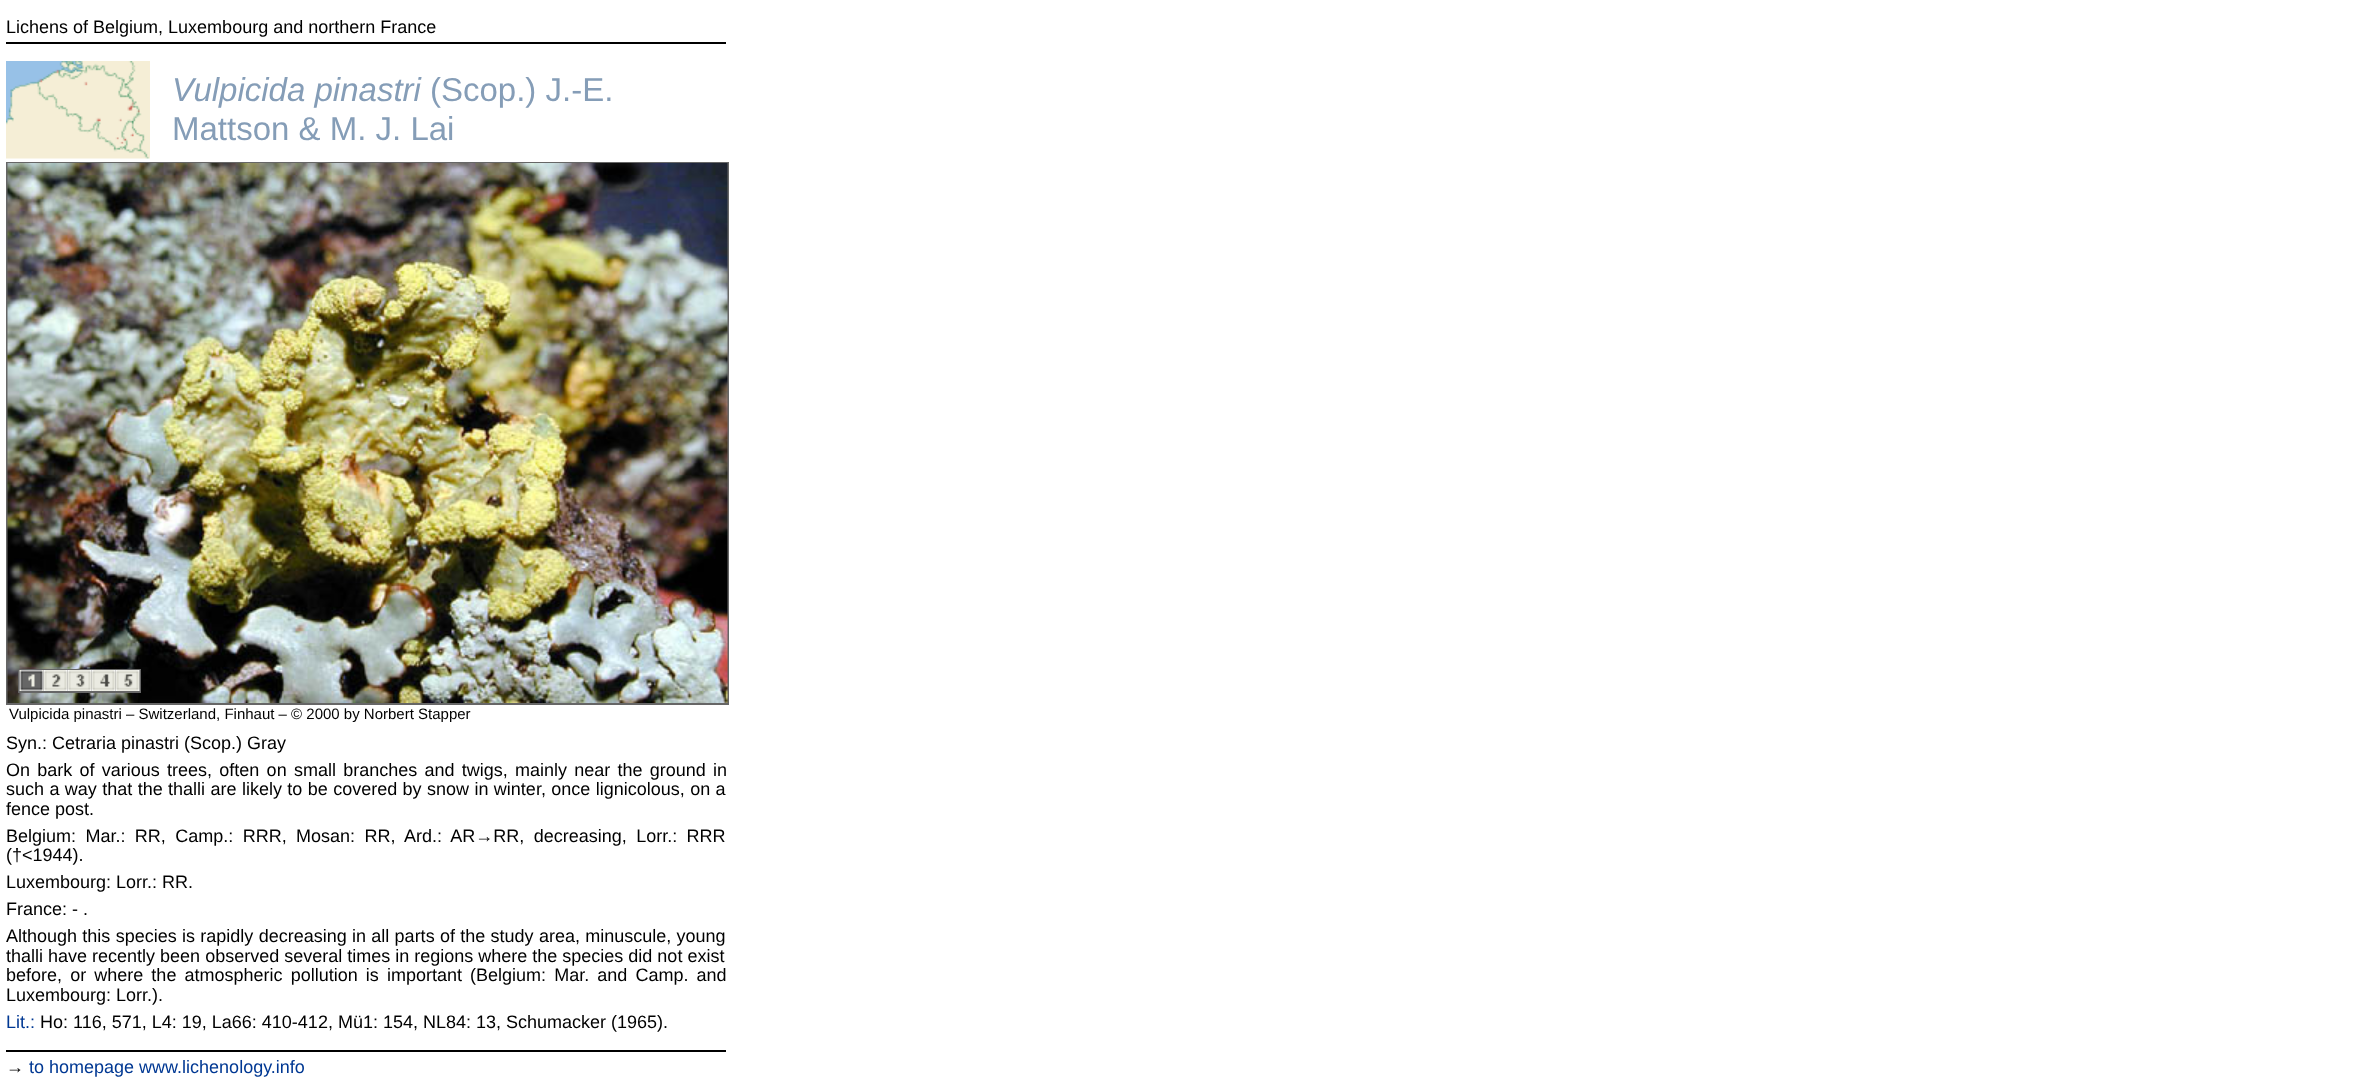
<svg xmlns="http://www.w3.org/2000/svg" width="2357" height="1088">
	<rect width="100%" height="100%" fill="#FFFFFF" />
	<rect x="6" y="42" width="720" height="2" fill="#000000" />
	<text x="6" y="33" font-family="Liberation Sans" font-size="18" fill="#000000">Lichens of Belgium, Luxembourg and northern France</text>
	<image x="6" y="61" width="144" height="98" href="assets/img1.png" />
	<text x="172" y="101" font-family="Liberation Sans" font-size="33" font-style="italic" fill="#859DB7">Vulpicida pinastri</text>
	<g font-family="Liberation Sans" font-size="33" fill="#859DB7">
		<text x="430" y="101">(Scop.) J.-E.</text>
		<text x="172" y="140">Mattson &amp; M. J. Lai</text>
	</g>
	<rect x="7" y="163" width="721" height="541" fill="none" stroke="#666666" stroke-width="2" />
	<image x="7" y="163" width="721" height="540" href="assets/img2.png" />
	<rect x="18" y="669" width="123" height="24" fill="#666666" />
	<image x="19" y="670" width="25" height="21" href="assets/img3.png" />
	<image x="43" y="670" width="25" height="21" href="assets/img4.png" />
	<image x="67" y="670" width="25" height="21" href="assets/img5.png" />
	<image x="91" y="670" width="25" height="21" href="assets/img6.png" />
	<image x="115" y="670" width="25" height="21" href="assets/img7.png" />
	<text x="9" y="719" font-family="Liberation Sans" font-size="15" fill="#000000">Vulpicida pinastri – Switzerland, Finhaut – © 2000 by Norbert Stapper</text>
	<g font-family="Liberation Sans" font-size="18" fill="#000000">
		<text x="6" y="749">Syn.: Cetraria pinastri (Scop.) Gray</text>
		<text x="6" y="776" word-spacing="2.25">On bark of various trees, often on small branches and twigs, mainly near the ground in</text>
		<text x="6" y="795" word-spacing="0.4">such a way that the thalli are likely to be covered by snow in winter, once lignicolous, on a</text>
		<text x="6" y="815">fence post.</text>
		<text x="6" y="842" word-spacing="4.4">Belgium: Mar.: RR, Camp.: RRR, Mosan: RR, Ard.: AR→RR, decreasing, Lorr.: RRR</text>
		<text x="6" y="861">(†&lt;1944).</text>
		<text x="6" y="888">Luxembourg: Lorr.: RR.</text>
		<text x="6" y="915">France: - .</text>
		<text x="6" y="942" word-spacing="0.3">Although this species is rapidly decreasing in all parts of the study area, minuscule, young</text>
		<text x="6" y="962">thalli have recently been observed several times in regions where the species did not exist</text>
		<text x="6" y="981" word-spacing="3.1">before, or where the atmospheric pollution is important (Belgium: Mar. and Camp. and</text>
		<text x="6" y="1001">Luxembourg: Lorr.).</text>
	</g>
	<text x="6" y="1028" font-family="Liberation Sans" font-size="18" fill="#003893">Lit.:</text>
	<text x="40" y="1028" font-family="Liberation Sans" font-size="18" fill="#000000">Ho: 116, 571, L4: 19, La66: 410-412, Mü1: 154, NL84: 13, Schumacker (1965).</text>
	<rect x="6" y="1050" width="720" height="2" fill="#000000" />
	<text x="6" y="1073" font-family="Liberation Sans" font-size="18" fill="#000000">→</text>
	<text x="29" y="1073" font-family="Liberation Sans" font-size="18" fill="#003893">to homepage www.lichenology.info</text>
</svg>
